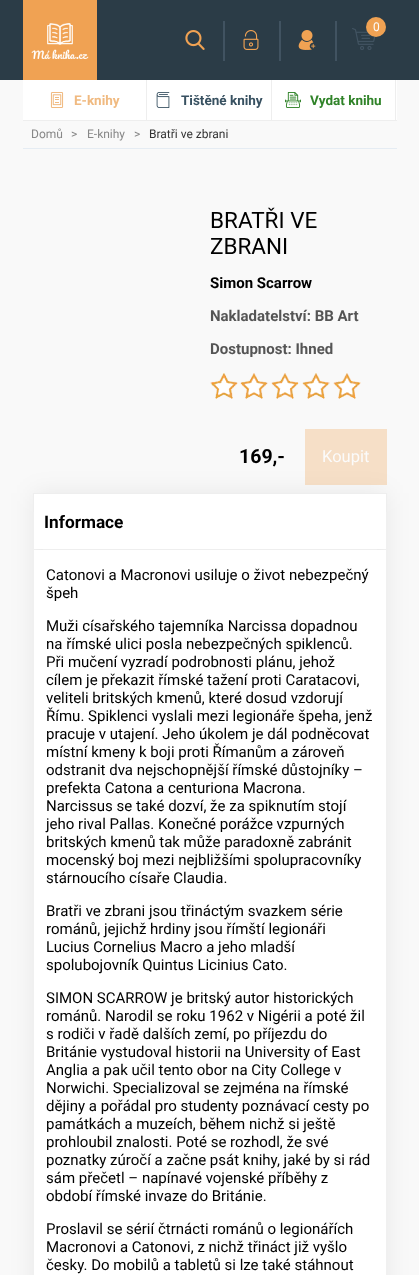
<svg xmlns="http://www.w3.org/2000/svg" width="419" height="1275">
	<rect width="100%" height="100%" fill="#F9F9F9" />
	<rect x="0" y="0" width="419" height="80" fill="#2B3C47" />
	<rect x="23" y="0" width="74" height="80" fill="#F0A253" />
	<image x="31" y="23" width="58" height="36" href="assets/img1.png" />
	<image x="185" y="30" width="20" height="20" href="assets/img2.png" />
	<rect x="223" y="21" width="2" height="40" fill="#415361" />
	<image x="243" y="30" width="16" height="20" href="assets/img3.png" />
	<rect x="279" y="21" width="2" height="40" fill="#415361" />
	<image x="298" y="30" width="18" height="20" href="assets/img4.png" />
	<rect x="335" y="21" width="2" height="40" fill="#415361" />
	<image x="352" y="28" width="24" height="22" href="assets/img5.png" />
	<circle cx="376" cy="27" r="10" fill="#F0A253" />
	<text x="373" y="31" font-family="Roboto" font-size="12" fill="#FBFBFB">0</text>
	<rect x="23" y="80" width="374" height="40" fill="#FFFFFF" />
	<rect x="23" y="120" width="374" height="1" fill="#EEEEEE" />
	<rect x="146" y="80" width="1" height="40" fill="#EEEEEE" />
	<image x="50" y="92" width="14" height="16" href="assets/img6.png" />
	<text x="74" y="105" font-family="Roboto" font-size="13.5" font-weight="700" fill="#F0BA81">E-knihy</text>
	<rect x="271" y="80" width="1" height="40" fill="#EEEEEE" />
	<image x="156" y="92" width="14" height="16" href="assets/img7.png" />
	<text x="181" y="105" font-family="Roboto" font-size="13.5" font-weight="700" fill="#385161">Tištěné knihy</text>
	<rect x="395" y="80" width="1" height="40" fill="#EEEEEE" />
	<image x="285" y="92" width="16" height="16" href="assets/img8.png" />
	<text x="310" y="105" font-family="Roboto" font-size="13.5" font-weight="700" fill="#308329">Vydat knihu</text>
	<rect x="23" y="148" width="374" height="1" fill="#E5ECF3" />
	<g font-family="Roboto" font-size="12" fill="#888888">
		<text x="31" y="138">Domů</text>
		<text x="71" y="138">&gt;</text>
		<text x="87" y="138">E-knihy</text>
		<text x="134" y="138">&gt;</text>
	</g>
	<text x="149" y="138" font-family="Roboto" font-size="12" fill="#333333">Bratři ve zbrani</text>
	<g font-family="Roboto" font-size="22.5" fill="#000000">
		<text x="210" y="228">BRATŘI VE</text>
		<text x="210" y="254">ZBRANI</text>
	</g>
	<text x="210" y="288" font-family="Roboto" font-size="15" font-weight="700" fill="#000000">Simon Scarrow</text>
	<g font-family="Roboto" font-size="15" font-weight="700" fill="#555555">
		<text x="210" y="321">Nakladatelství: BB Art</text>
		<text x="210" y="354">Dostupnost: Ihned</text>
	</g>
	<image x="210" y="373" width="151" height="26" href="assets/img9.png" />
	<rect x="33" y="493" width="354" height="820" fill="#000000" fill-opacity="0.07" filter="blur(12.5px)" />
	<text x="239" y="463" font-family="Roboto" font-size="19.5" font-weight="700" fill="#000000">169,-</text>
	<rect x="306" y="430" width="80" height="54" fill="none" stroke="#F0A253" stroke-opacity="0.3" stroke-width="2" />
	<rect x="307" y="431" width="78" height="52" fill="#F0A253" fill-opacity="0.3" />
	<text x="322" y="462" font-family="Roboto" font-size="16.5" fill="#FBFBFB">Koupit</text>
	<rect x="33" y="493" width="354" height="1" fill="#EEEEEE" />
	<rect x="34" y="494" width="352" height="55" fill="#FFFFFF" />
	<rect x="386" y="494" width="1" height="18" fill="#EEEEEE" />
	<rect x="43" y="549" width="334" height="1" fill="#EEEEEE" />
	<rect x="33" y="494" width="1" height="18" fill="#EEEEEE" />
	<text x="44" y="528" font-family="Roboto" font-size="17.25" font-weight="700" fill="#000000">Informace</text>
	<rect x="34" y="550" width="352" height="725" fill="#FFFFFF" />
	<g font-family="Roboto" font-size="15" fill="#000000">
		<text x="46" y="580">Catonovi a Macronovi usiluje o život nebezpečný</text>
		<text x="46" y="598">špeh</text>
		<text x="46" y="631">Muži císařského tajemníka Narcissa dopadnou</text>
		<text x="46" y="649">na římské ulici posla nebezpečných spiklenců.</text>
		<text x="46" y="667">Při mučení vyzradí podrobnosti plánu, jehož</text>
		<text x="46" y="685">cílem je překazit římské tažení proti Caratacovi,</text>
		<text x="46" y="703">veliteli britských kmenů, které dosud vzdorují</text>
		<text x="46" y="721">Římu. Spiklenci vyslali mezi legionáře špeha, jenž</text>
		<text x="46" y="739">pracuje v utajení. Jeho úkolem je dál podněcovat</text>
		<text x="46" y="757">místní kmeny k boji proti Římanům a zároveň</text>
		<text x="46" y="775">odstranit dva nejschopnější římské důstojníky –</text>
		<text x="46" y="793">prefekta Catona a centuriona Macrona.</text>
		<text x="46" y="811">Narcissus se také dozví, že za spiknutím stojí</text>
		<text x="46" y="829">jeho rival Pallas. Konečné porážce vzpurných</text>
		<text x="46" y="847">britských kmenů tak může paradoxně zabránit</text>
		<text x="46" y="865">mocenský boj mezi nejbližšími spolupracovníky</text>
		<text x="46" y="883">stárnoucího císaře Claudia.</text>
		<text x="46" y="916">Bratři ve zbrani jsou třináctým svazkem série</text>
		<text x="46" y="934">románů, jejichž hrdiny jsou římští legionáři</text>
		<text x="46" y="952">Lucius Cornelius Macro a jeho mladší</text>
		<text x="46" y="970">spolubojovník Quintus Licinius Cato.</text>
		<text x="46" y="1003">SIMON SCARROW je britský autor historických</text>
		<text x="46" y="1021">románů. Narodil se roku 1962 v Nigérii a poté žil</text>
		<text x="46" y="1039">s rodiči v řadě dalších zemí, po příjezdu do</text>
		<text x="46" y="1057">Británie vystudoval historii na University of East</text>
		<text x="46" y="1075">Anglia a pak učil tento obor na City College v</text>
		<text x="46" y="1093">Norwichi. Specializoval se zejména na římské</text>
		<text x="46" y="1111">dějiny a pořádal pro studenty poznávací cesty po</text>
		<text x="46" y="1129">památkách a muzeích, během nichž si ještě</text>
		<text x="46" y="1147">prohloubil znalosti. Poté se rozhodl, že své</text>
		<text x="46" y="1165">poznatky zúročí a začne psát knihy, jaké by si rád</text>
		<text x="46" y="1183">sám přečetl – napínavé vojenské příběhy z</text>
		<text x="46" y="1201">období římské invaze do Británie.</text>
		<text x="46" y="1234">Proslavil se sérií čtrnácti románů o legionářích</text>
		<text x="46" y="1252">Macronovi a Catonovi, z nichž třináct již vyšlo</text>
		<text x="46" y="1270">česky. Do mobilů a tabletů si lze také stáhnout</text>
	</g>
</svg>
